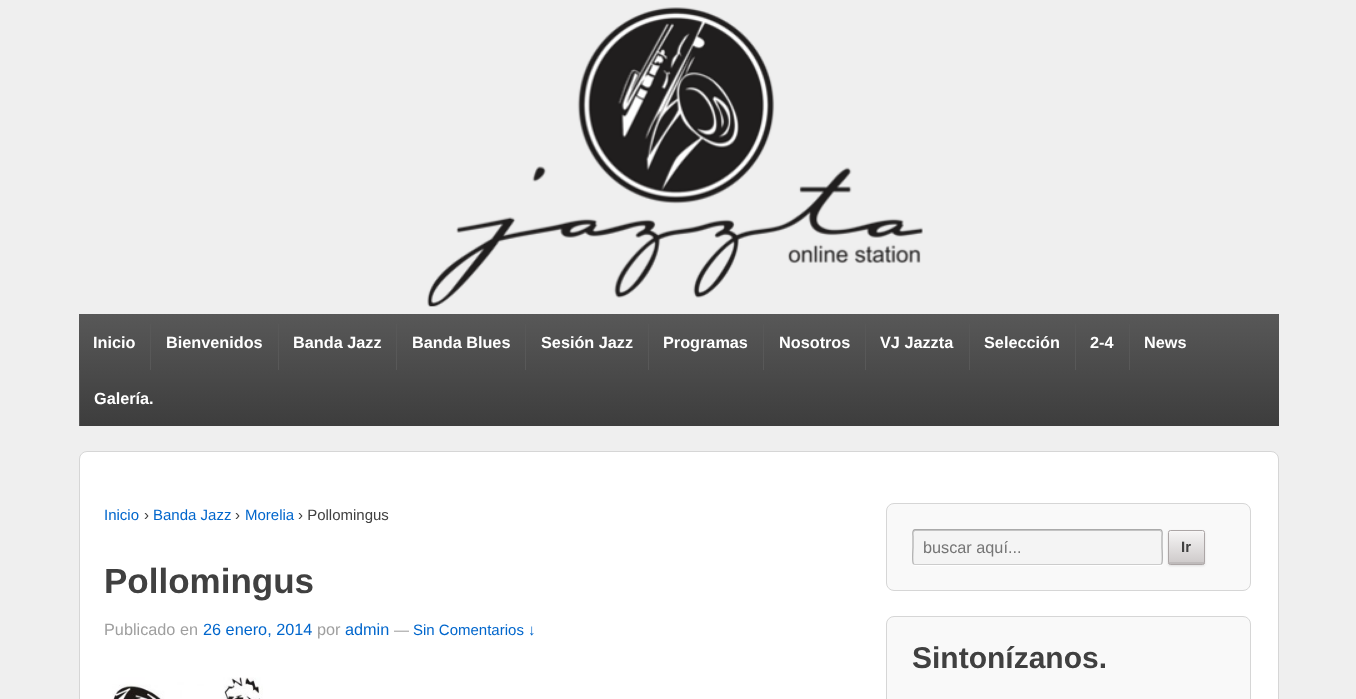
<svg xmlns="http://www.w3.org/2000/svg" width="1356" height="699">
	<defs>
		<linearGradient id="g1" gradientUnits="userSpaceOnUse" x1="679" y1="314" x2="679" y2="426"><stop offset="0" stop-color="#585858" /><stop offset="1" stop-color="#3D3D3D" /></linearGradient>
		<clipPath id="clip1"><rect x="1168" y="530" width="37" height="35" rx="2.5" /></clipPath>
		<linearGradient id="g2" gradientUnits="userSpaceOnUse" x1="1186" y1="531" x2="1186" y2="564"><stop offset="0" stop-color="#F6F5F5" /><stop offset="1" stop-color="#CDC9C9" /></linearGradient>
	</defs>
	<rect width="100%" height="100%" fill="#EFEFEF" />
	<image x="427" y="7" width="496" height="300" href="assets/img1.png" />
	<rect x="79" y="314" width="1200" height="112" fill="url(#g1)" />
	<text x="93" y="348" font-family="Liberation Sans" font-size="16.25" font-weight="700" fill="#FFFFFF">Inicio</text>
	<rect x="150" y="324" width="1" height="46" fill="#585858" />
	<text x="166" y="348" font-family="Liberation Sans" font-size="16.25" font-weight="700" fill="#FFFFFF">Bienvenidos</text>
	<rect x="278" y="324" width="1" height="46" fill="#585858" />
	<text x="293" y="348" font-family="Liberation Sans" font-size="16.25" font-weight="700" fill="#FFFFFF">Banda Jazz</text>
	<rect x="396" y="324" width="1" height="46" fill="#585858" />
	<text x="412" y="348" font-family="Liberation Sans" font-size="16.25" font-weight="700" fill="#FFFFFF">Banda Blues</text>
	<rect x="525" y="324" width="1" height="46" fill="#585858" />
	<text x="541" y="348" font-family="Liberation Sans" font-size="16.25" font-weight="700" fill="#FFFFFF">Sesión Jazz</text>
	<rect x="648" y="324" width="1" height="46" fill="#585858" />
	<text x="663" y="348" font-family="Liberation Sans" font-size="16.25" font-weight="700" fill="#FFFFFF">Programas</text>
	<rect x="763" y="324" width="1" height="46" fill="#585858" />
	<text x="779" y="348" font-family="Liberation Sans" font-size="16.25" font-weight="700" fill="#FFFFFF">Nosotros</text>
	<rect x="865" y="324" width="1" height="46" fill="#585858" />
	<text x="880" y="348" font-family="Liberation Sans" font-size="16.25" font-weight="700" fill="#FFFFFF">VJ Jazzta</text>
	<rect x="969" y="324" width="1" height="46" fill="#585858" />
	<text x="984" y="348" font-family="Liberation Sans" font-size="16.25" font-weight="700" fill="#FFFFFF">Selección</text>
	<rect x="1075" y="324" width="1" height="46" fill="#585858" />
	<text x="1090" y="348" font-family="Liberation Sans" font-size="16.25" font-weight="700" fill="#FFFFFF">2-4</text>
	<rect x="1129" y="324" width="1" height="46" fill="#585858" />
	<text x="1144" y="348" font-family="Liberation Sans" font-size="16.25" font-weight="700" fill="#FFFFFF">News</text>
	<rect x="79" y="370" width="1" height="56" fill="#585858" />
	<text x="94" y="404" font-family="Liberation Sans" font-size="16.25" font-weight="700" fill="#FFFFFF">Galería.</text>
	<rect x="79.5" y="451.5" width="1199" height="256" rx="7.5" fill="#FFFFFF" stroke="#D6D6D6" />
	<text x="104" y="520" font-family="Liberation Sans" font-size="15" fill="#0066CC">Inicio</text>
	<text x="144" y="520" font-family="Liberation Sans" font-size="15" fill="#404040">›</text>
	<text x="153" y="520" font-family="Liberation Sans" font-size="15" fill="#0066CC">Banda Jazz</text>
	<text x="235" y="520" font-family="Liberation Sans" font-size="15" fill="#404040">›</text>
	<text x="245" y="520" font-family="Liberation Sans" font-size="15" fill="#0066CC">Morelia</text>
	<text x="298" y="520" font-family="Liberation Sans" font-size="15" fill="#404040">› Pollomingus</text>
	<text x="104" y="593" font-family="Liberation Sans" font-size="35" font-weight="700" fill="#404040">Pollomingus</text>
	<text x="104" y="635" font-family="Liberation Sans" font-size="16.25" fill="#9F9F9F">Publicado en</text>
	<text x="203" y="635" font-family="Liberation Sans" font-size="16.25" fill="#0066CC">26 enero, 2014</text>
	<text x="317" y="635" font-family="Liberation Sans" font-size="16.25" fill="#9F9F9F">por</text>
	<text x="345" y="635" font-family="Liberation Sans" font-size="16.25" fill="#0066CC">admin</text>
	<text x="394" y="635" font-family="Liberation Sans" font-size="15" fill="#9F9F9F">—</text>
	<text x="413" y="635" font-family="Liberation Sans" font-size="15" fill="#0066CC">Sin Comentarios ↓</text>
	<image x="112" y="677" width="151" height="22" href="assets/img2.png" />
	<rect x="886.5" y="503.5" width="364" height="87" rx="7.5" fill="#F9F9F9" stroke="#D6D6D6" />
	<path d="M913 564C913 565 914 566 916 566H1160C1162 566 1163 565 1163 564V532L1162 531V557C1162 559 1164 565 1160 565H915Z" fill="#FFFFFF" />
	<rect x="913" y="529" width="250" height="36" rx="2.5" fill="#F4F4F4" />
	<path d="M915 531H1160L1161 532C1161 531 1161 530 1160 530H914V532Z" fill="#C3C3C3" />
	<path d="M1161.5 564L1160 564.5H915L913.5 564" fill="none" stroke="#CCCCCC" stroke-width="1.2" />
	<path d="M913.5 564C912 562.5 913 549.5 913 547V536.5C913 535.5 912 529.5 915 529.5H1160C1163 529.5 1162 535.5 1162 536.5V547C1162 549.5 1163 562.5 1161.5 564" fill="none" stroke="#AAAAAA" stroke-width="1.2" />
	<text x="923" y="553" font-family="Liberation Sans" font-size="16.25" fill="#757575">buscar aquí...</text>
	<rect x="1168" y="531" width="37" height="35" rx="2.5" fill="#000000" fill-opacity="0.1" filter="blur(1px)" />
	<g clip-path="url(#clip1)">
		<rect x="1168" y="531" width="37" height="33" fill="url(#g2)" />
	</g>
	<path d="M1170 532H1197C1199 532 1203.5 531 1204 534C1204 529.5 1203 531 1197.5 531H1175.5C1170 531 1169 529.5 1169 534C1169 533 1169 532 1170 532Z" fill="#F8F7F7" />
	<path d="M1169 562C1169 565.5 1172 564 1175.5 564H1197.5C1203.5 564 1204 565.5 1204 561C1204 561.5 1204 562 1203.5 562Z" fill="#BFBBBB" />
	<rect x="1168.5" y="530.5" width="36" height="34" rx="2" fill="none" stroke="#ACA6A6" />
	<text x="1181" y="552" font-family="Liberation Sans" font-size="15" font-weight="700" fill="#404040">Ir</text>
	<rect x="886.5" y="616.5" width="364" height="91" rx="7.5" fill="#F9F9F9" stroke="#D6D6D6" />
	<text x="912" y="668" font-family="Liberation Sans" font-size="30" font-weight="700" fill="#404040">Sintonízanos.</text>
</svg>
